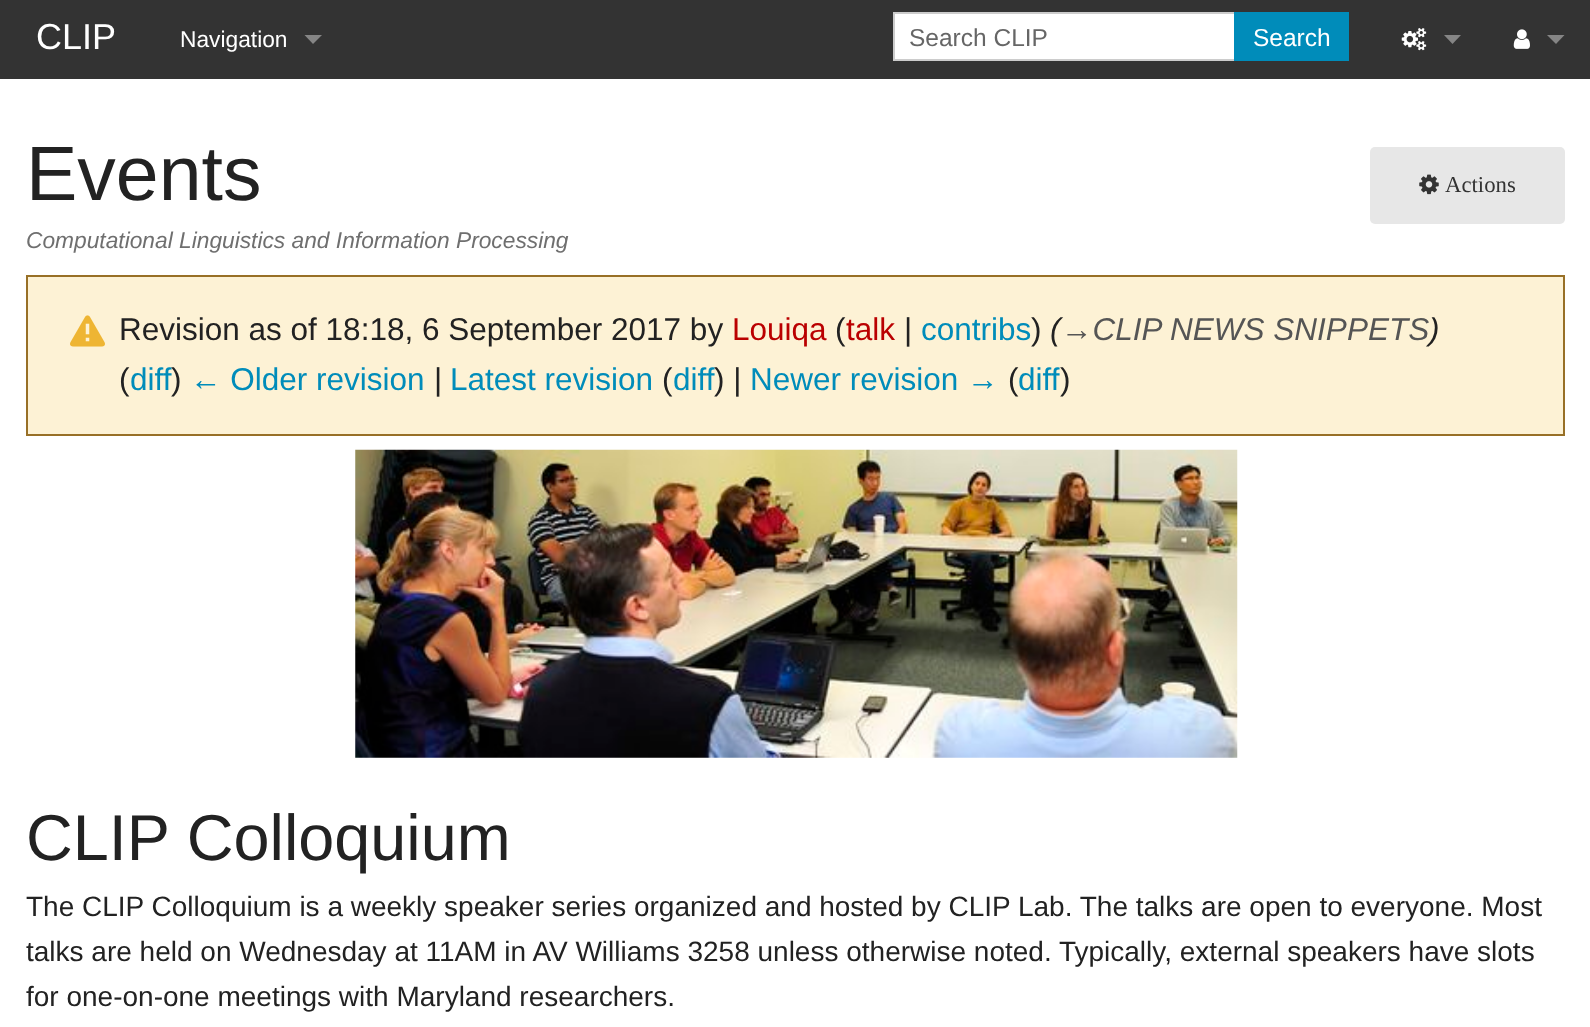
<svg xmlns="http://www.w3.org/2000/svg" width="1590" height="1027">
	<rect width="100%" height="100%" fill="#FFFFFF" />
	<rect x="0" y="0" width="1590" height="79" fill="#333333" />
	<text x="36" y="49" font-family="Liberation Sans" font-size="36" fill="#FFFFFF">CLIP</text>
	<text x="180" y="47" font-family="Liberation Sans" font-size="22.75" fill="#FFFFFF">Navigation</text>
	<path d="M304.5 35H322L313 44Z" fill="#858585" />
	<rect x="895" y="14" width="339" height="45" fill="#FFFFFF" />
	<rect x="894" y="13" width="346" height="47" fill="none" stroke="#CCCCCC" stroke-width="2" />
	<text x="909" y="46" font-family="Liberation Sans" font-size="24.5" fill="#666666">Search CLIP</text>
	<rect x="1234" y="12" width="115" height="49" fill="#008CBA" />
	<text x="1253" y="46" font-family="Liberation Sans" font-size="24.5" fill="#FFFFFF">Search</text>
	<image x="1401" y="28" width="26" height="23" href="assets/img1.png" />
	<path d="M1444 35H1461L1452.5 44Z" fill="#858585" />
	<image x="1513" y="29" width="17" height="20" href="assets/img2.png" />
	<path d="M1547 35H1564.5L1556 44Z" fill="#858585" />
	<text x="26" y="200" font-family="Liberation Sans" font-size="77" fill="#222222">Events</text>
	<text x="26" y="248" font-family="Liberation Sans" font-size="22.75" font-style="italic" fill="#6F6F6F">Computational Linguistics and Information Processing</text>
	<rect x="27" y="276" width="1537" height="159" fill="#FDF2D5" stroke="#987027" stroke-width="2" />
	<image x="70" y="315" width="35" height="32" href="assets/img3.png" />
	<text x="119" y="340" font-family="Liberation Sans" font-size="31.5" fill="#222222">Revision as of 18:18, 6 September 2017 by</text>
	<text x="732" y="340" font-family="Liberation Sans" font-size="31.5" fill="#BA0000">Louiqa</text>
	<text x="835" y="340" font-family="Liberation Sans" font-size="31.5" fill="#222222">(</text>
	<text x="846" y="340" font-family="Liberation Sans" font-size="31.5" fill="#BA0000">talk</text>
	<text x="904" y="340" font-family="Liberation Sans" font-size="31.5" fill="#222222">|</text>
	<text x="921" y="340" font-family="Liberation Sans" font-size="31.5" fill="#008CBA">contribs</text>
	<text x="1031" y="340" font-family="Liberation Sans" font-size="31.5" fill="#222222">)</text>
	<text x="1050" y="340" font-family="Liberation Sans" font-size="31.5" font-style="italic" fill="#222222">(</text>
	<text x="1061" y="340" font-family="Liberation Sans" font-size="31.5" font-style="italic" fill="#555555">→CLIP NEWS SNIPPETS</text>
	<text x="1429" y="340" font-family="Liberation Sans" font-size="31.5" font-style="italic" fill="#222222">)</text>
	<text x="119" y="390" font-family="Liberation Sans" font-size="31.5" fill="#222222">(</text>
	<text x="130" y="390" font-family="Liberation Sans" font-size="31.5" fill="#008CBA">diff</text>
	<text x="171" y="390" font-family="Liberation Sans" font-size="31.5" fill="#222222">)</text>
	<text x="190" y="390" font-family="Liberation Sans" font-size="31.5" fill="#008CBA">← Older revision</text>
	<text x="434" y="390" font-family="Liberation Sans" font-size="31.5" fill="#222222">|</text>
	<text x="450" y="390" font-family="Liberation Sans" font-size="31.5" fill="#008CBA">Latest revision</text>
	<text x="662" y="390" font-family="Liberation Sans" font-size="31.5" fill="#222222">(</text>
	<text x="673" y="390" font-family="Liberation Sans" font-size="31.5" fill="#008CBA">diff</text>
	<text x="714" y="390" font-family="Liberation Sans" font-size="31.5" fill="#222222">) |</text>
	<text x="750" y="390" font-family="Liberation Sans" font-size="31.5" fill="#008CBA">Newer revision →</text>
	<text x="1008" y="390" font-family="Liberation Sans" font-size="31.5" fill="#222222">(</text>
	<text x="1018" y="390" font-family="Liberation Sans" font-size="31.5" fill="#008CBA">diff</text>
	<text x="1060" y="390" font-family="Liberation Sans" font-size="31.5" fill="#222222">)</text>
	<image x="355" y="449" width="883" height="309" href="assets/img4.png" />
	<text x="26" y="860" font-family="Liberation Sans" font-size="64.75" fill="#222222">CLIP Colloquium</text>
	<g font-family="Liberation Sans" font-size="28" fill="#222222">
		<text x="26" y="916">The CLIP Colloquium is a weekly speaker series organized and hosted by CLIP Lab. The talks are open to everyone. Most</text>
		<text x="26" y="961">talks are held on Wednesday at 11AM in AV Williams 3258 unless otherwise noted. Typically, external speakers have slots</text>
		<text x="26" y="1006">for one-on-one meetings with Maryland researchers.</text>
	</g>
	<rect x="1370" y="147" width="195" height="77" rx="5" fill="#E7E7E7" />
	<image x="1419" y="174" width="20" height="21" href="assets/img5.png" />
	<text x="1445" y="192" font-family="Liberation Serif" font-size="22.75" fill="#333333">Actions</text>
</svg>
